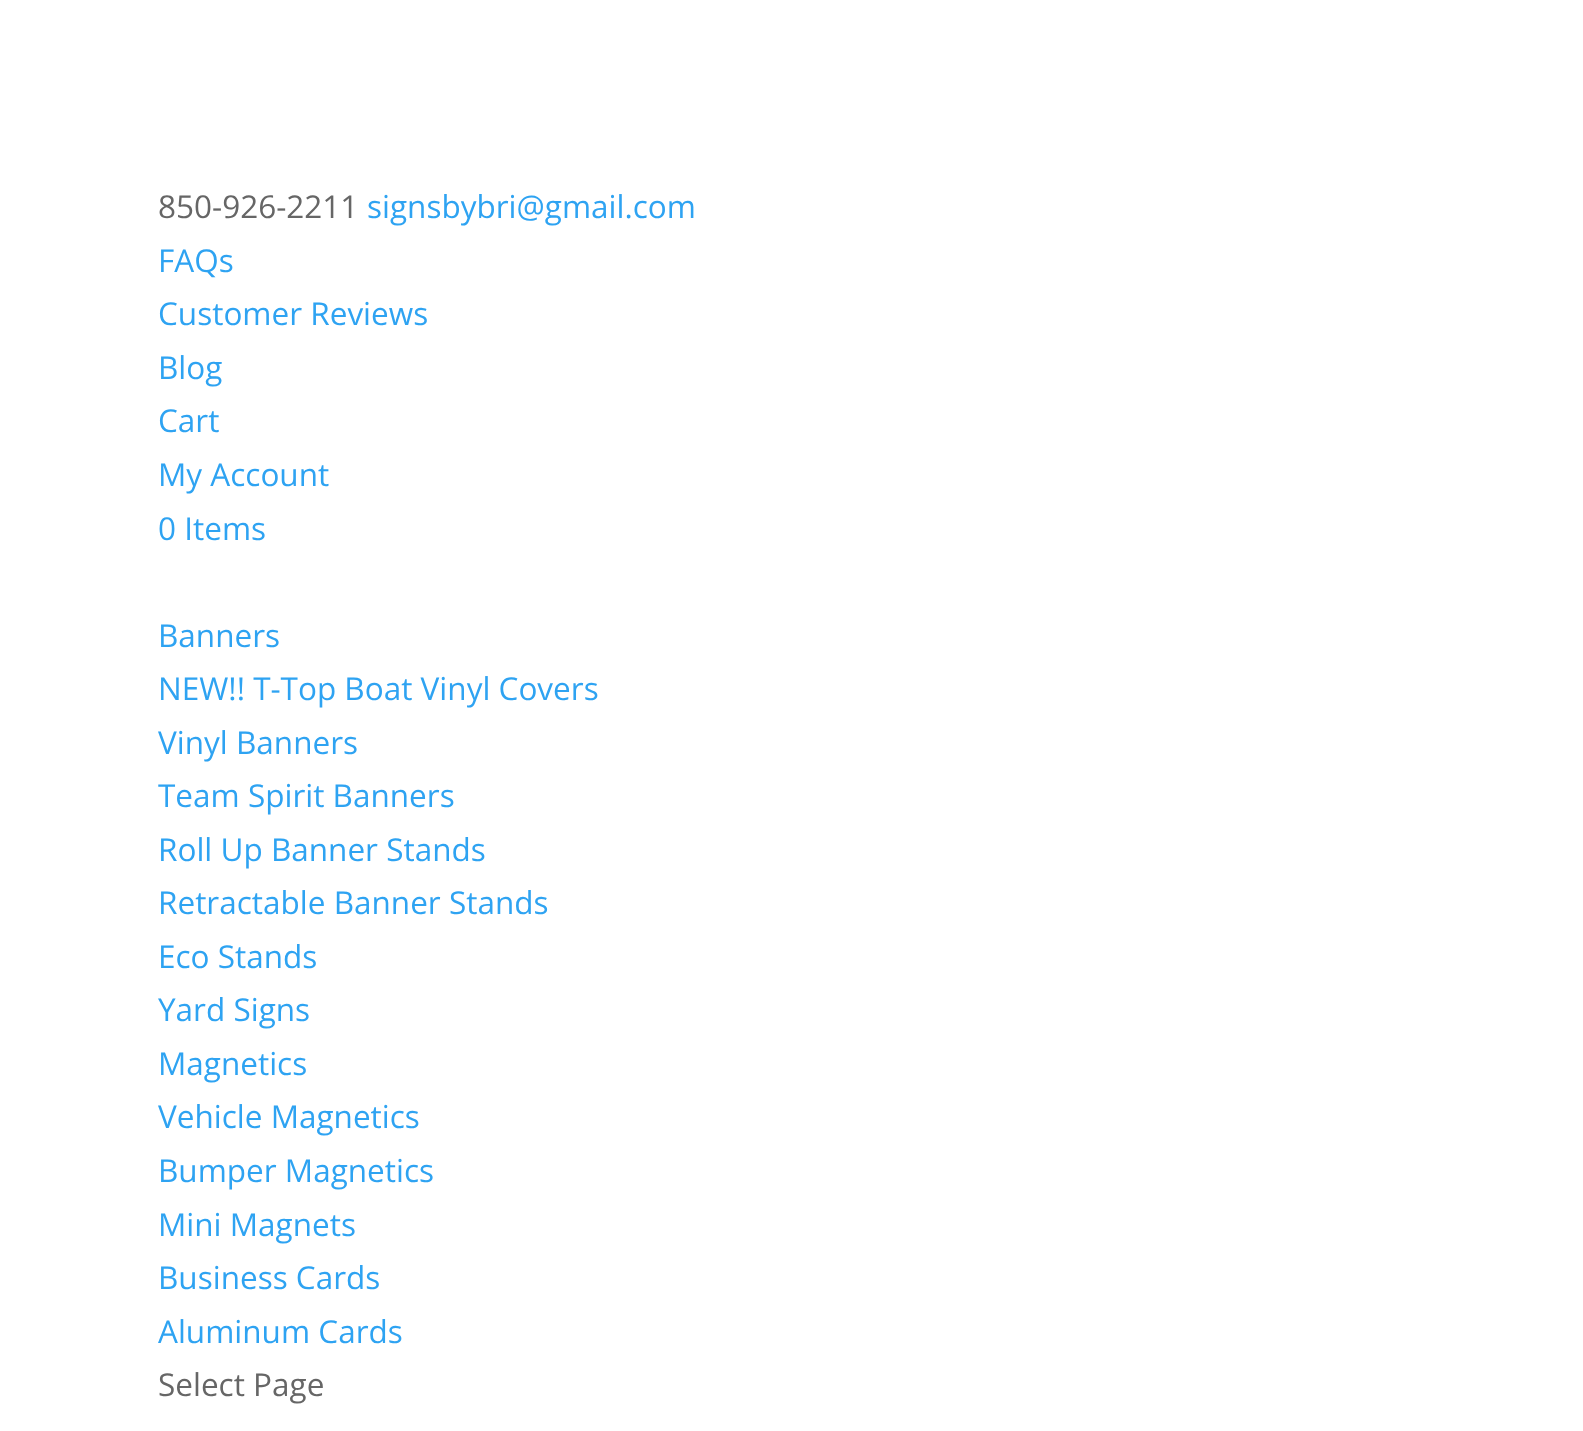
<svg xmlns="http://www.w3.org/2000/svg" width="1583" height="1431">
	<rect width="100%" height="100%" fill="#FFFFFF" />
	<text x="158" y="218" font-family="Open Sans" font-size="31.5" fill="#666666">850-926-2211</text>
	<g font-family="Open Sans" font-size="31.5" fill="#2EA3F2">
		<text x="367" y="218">signsbybri@gmail.com</text>
		<text x="158" y="272">FAQs</text>
		<text x="158" y="325">Customer Reviews</text>
		<text x="158" y="379">Blog</text>
		<text x="158" y="432">Cart</text>
		<text x="158" y="486">My Account</text>
		<text x="158" y="540">0 Items</text>
		<text x="158" y="647">Banners</text>
		<text x="158" y="700">NEW!! T-Top Boat Vinyl Covers</text>
		<text x="158" y="754">Vinyl Banners</text>
		<text x="158" y="807">Team Spirit Banners</text>
		<text x="158" y="861">Roll Up Banner Stands</text>
		<text x="158" y="914">Retractable Banner Stands</text>
		<text x="158" y="968">Eco Stands</text>
		<text x="158" y="1021">Yard Signs</text>
		<text x="158" y="1075">Magnetics</text>
		<text x="158" y="1128">Vehicle Magnetics</text>
		<text x="158" y="1182">Bumper Magnetics</text>
		<text x="158" y="1236">Mini Magnets</text>
		<text x="158" y="1289">Business Cards</text>
		<text x="158" y="1343">Aluminum Cards</text>
	</g>
	<text x="158" y="1396" font-family="Open Sans" font-size="31.5" fill="#666666">Select Page</text>
</svg>
